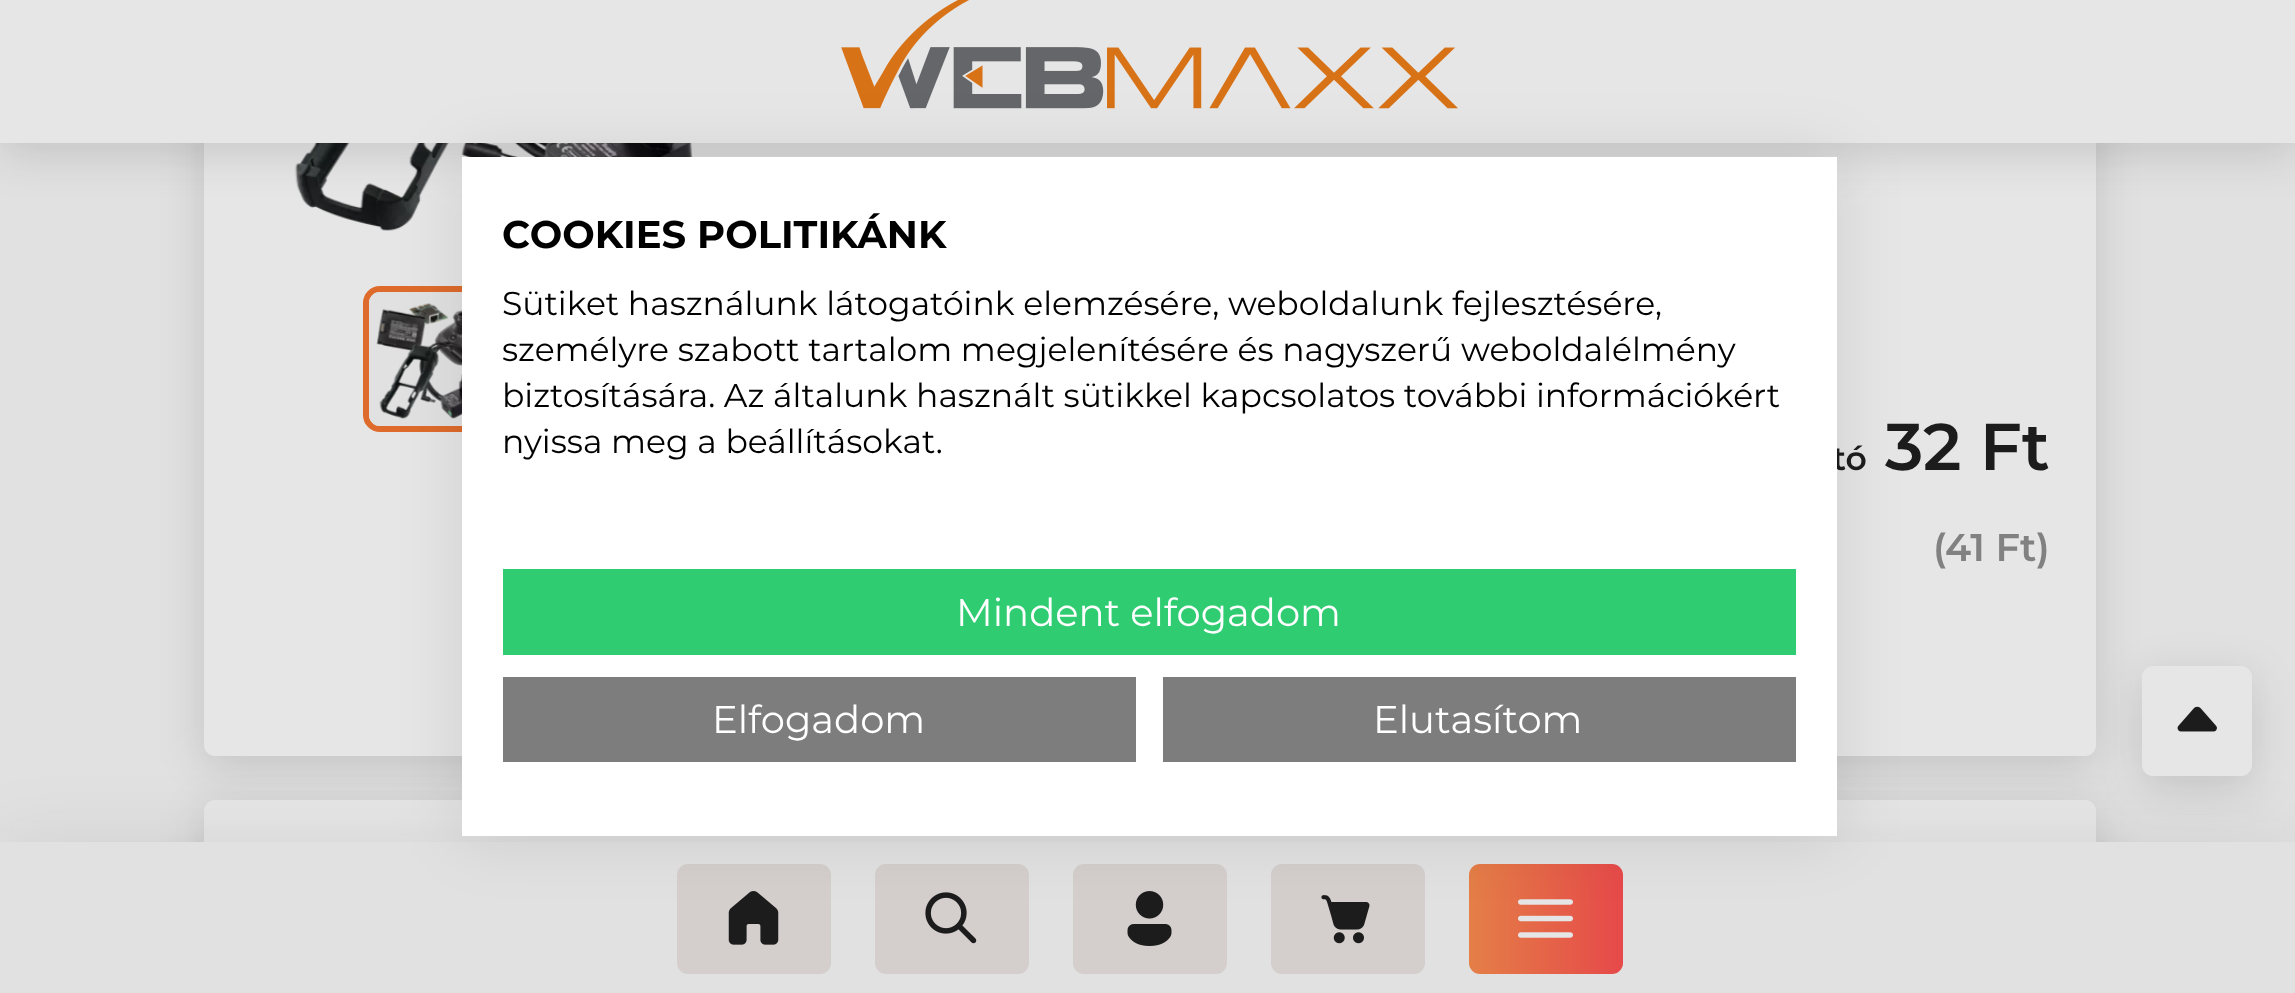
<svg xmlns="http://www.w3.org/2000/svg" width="2295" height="993">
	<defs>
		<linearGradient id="g1" gradientUnits="userSpaceOnUse" x1="1315" y1="919" x2="1623" y2="919"><stop offset="0" stop-color="#DE6B2B" /><stop offset="0.5" stop-color="#E47F47" /><stop offset="1" stop-color="#E64949" /></linearGradient>
	</defs>
	<rect width="100%" height="100%" fill="#E1E1E1" />
	<rect x="204" y="-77" width="1892" height="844" rx="11" fill="#1C1C1C" fill-opacity="0.15" filter="blur(22px)" />
	<rect x="204" y="-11" width="1892" height="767" rx="11" fill="#E6E6E6" />
	<image x="294" y="143" width="399" height="88" href="assets/img7.png" />
	<rect x="0" y="11" width="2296" height="143" fill="#1C1C1C" fill-opacity="0.15" filter="blur(22px)" />
	<rect x="0" y="0" width="2295" height="143" fill="#E6E6E6" />
	<image x="841" y="0" width="617" height="109" href="assets/img1.png" />
	<rect x="204" y="811" width="1892" height="110" rx="11" fill="#1C1C1C" fill-opacity="0.15" filter="blur(22px)" />
	<rect x="204" y="800" width="1892" height="110" rx="11" fill="#E6E6E6" />
	<rect x="0" y="864" width="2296" height="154" fill="#1C1C1C" fill-opacity="0.15" filter="blur(44px)" />
	<rect x="0" y="842" width="2295" height="151" fill="#E1E1E1" />
	<rect x="677" y="864" width="154" height="110" rx="11" fill="#D4CFCD" />
	<image x="728" y="891" width="51" height="54" href="assets/img2.png" />
	<rect x="875" y="864" width="154" height="110" rx="11" fill="#D4CFCD" />
	<image x="925" y="892" width="52" height="52" href="assets/img3.png" />
	<rect x="1073" y="864" width="154" height="110" rx="11" fill="#D4CFCD" />
	<image x="1127" y="891" width="45" height="55" href="assets/img4.png" />
	<rect x="1271" y="864" width="154" height="110" rx="11" fill="#D4CFCD" />
	<image x="1321" y="895" width="49" height="49" href="assets/img5.png" />
	<rect x="1469" y="864" width="154" height="110" rx="11" fill="url(#g1)" />
	<image x="1518" y="899" width="55" height="39" href="assets/img6.png" />
	<rect x="366" y="289" width="137" height="140" rx="14" fill="none" stroke="#DE6B2B" stroke-width="6" />
	<rect x="369" y="292" width="132" height="134" rx="11" fill="#E1E1E1" />
	<image x="376" y="303" width="86" height="116" href="assets/img8.png" />
	<rect x="462" y="157" width="1375" height="679" fill="#000000" fill-opacity="0.1" filter="blur(33px)" />
	<text x="1832" y="470" font-family="Montserrat" font-size="33" font-weight="100" fill="#1C1C1C">tó</text>
	<rect x="462" y="157" width="1375" height="679" fill="#FFFFFF" />
	<text x="502" y="248" font-family="'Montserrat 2'" font-size="38.5" font-weight="100" fill="#000000">COOKIES POLITIKÁNK</text>
	<g font-family="'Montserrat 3'" font-size="33" font-weight="100" fill="#000000">
		<text x="502" y="315">Sütiket használunk látogatóink elemzésére, weboldalunk fejlesztésére,</text>
		<text x="502" y="361">személyre szabott tartalom megjelenítésére és nagyszerű weboldalélmény</text>
		<text x="502" y="407">biztosítására. Az általunk használt sütikkel kapcsolatos további információkért</text>
		<text x="502" y="453">nyissa meg a beállításokat.</text>
	</g>
	<rect x="503" y="569" width="1293" height="86" fill="#2FCC71" />
	<text x="956" y="626" font-family="'Montserrat 3'" font-size="38.5" font-weight="100" fill="#FFFFFF">Mindent elfogadom</text>
	<rect x="503" y="677" width="633" height="85" fill="#7D7D7D" />
	<text x="712" y="733" font-family="'Montserrat 3'" font-size="38.5" font-weight="100" fill="#FFFFFF">Elfogadom</text>
	<rect x="1163" y="677" width="633" height="85" fill="#7D7D7D" />
	<text x="1373" y="733" font-family="'Montserrat 3'" font-size="38.5" font-weight="100" fill="#FFFFFF">Elutasítom</text>
	<text x="1885" y="470" font-family="Montserrat" font-size="66" font-weight="100" fill="#1C1C1C">32 Ft</text>
	<g font-family="Montserrat" font-size="38.5" font-weight="100" fill="#818181">
		<text x="1933" y="561">(</text>
		<text x="1945" y="561">41 Ft)</text>
	</g>
	<rect x="2142" y="677" width="110" height="110" rx="11" fill="#1C1C1C" fill-opacity="0.15" filter="blur(22px)" />
	<rect x="2142" y="666" width="110" height="110" rx="11" fill="#E6E6E6" />
	<image x="2177" y="706" width="40" height="26" href="assets/img9.png" />
</svg>
